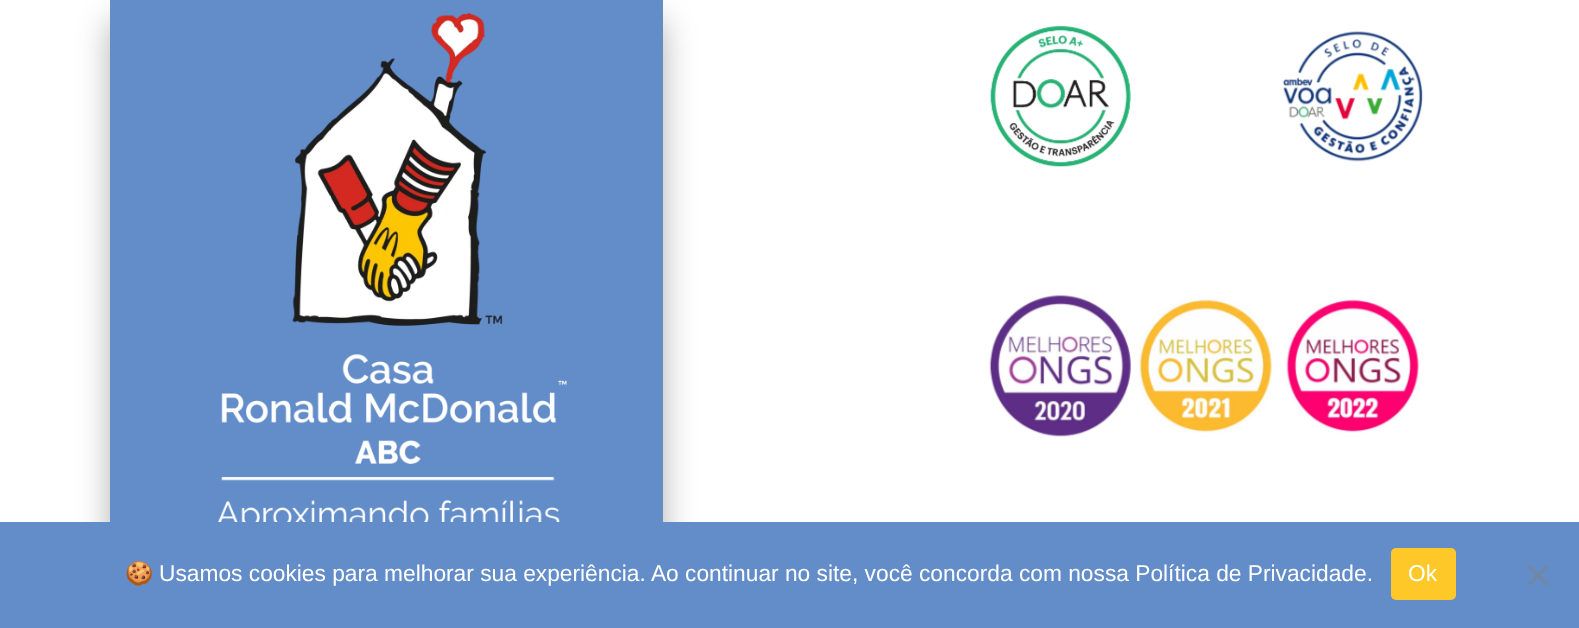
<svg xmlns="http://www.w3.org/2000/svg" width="1579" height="628">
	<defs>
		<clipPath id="clip1"><path d="M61 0H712V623H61ZM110 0H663V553H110Z" clip-rule="evenodd" /></clipPath>
	</defs>
	<rect width="100%" height="100%" fill="#FFFFFF" />
	<rect x="110" y="0" width="553" height="522" fill="#638DC9" />
	<g clip-path="url(#clip1)">
		<rect x="110" y="21" width="553" height="553" fill="#000000" fill-opacity="0.3" filter="blur(16px)" />
	</g>
	<image x="218" y="12" width="349" height="510" href="assets/img1.png" />
	<image x="990" y="26" width="141" height="141" href="assets/img2.png" />
	<image x="1282" y="31" width="141" height="131" href="assets/img3.png" />
	<image x="989" y="295" width="142" height="142" href="assets/img4.png" />
	<image x="1139" y="299" width="134" height="134" href="assets/img5.png" />
	<image x="1286" y="299" width="135" height="134" href="assets/img6.png" />
	<rect x="0" y="522" width="1579" height="106" fill="#638DC9" />
	<text x="125" y="581" font-family="Noto Color Emoji" font-size="22.75" fill="#FFFFFF">🍪</text>
	<text x="159" y="581" font-family="Liberation Sans" font-size="22.75" fill="#FFFFFF">Usamos cookies para melhorar sua experiência. Ao continuar no site, você concorda com nossa Política de Privacidade.</text>
	<rect x="1391" y="548" width="65" height="52" rx="5" fill="#FFC829" />
	<text x="1408" y="581" font-family="Liberation Sans" font-size="22.75" fill="#FFFFFF">Ok</text>
	<path d="M1546.5 565L1549 567.5L1530 586L1527.5 583.5Z" fill="#7287A5" />
	<path d="M1527.5 567.5L1530 565L1549 583.5L1546.5 586Z" fill="#7287A5" />
</svg>
